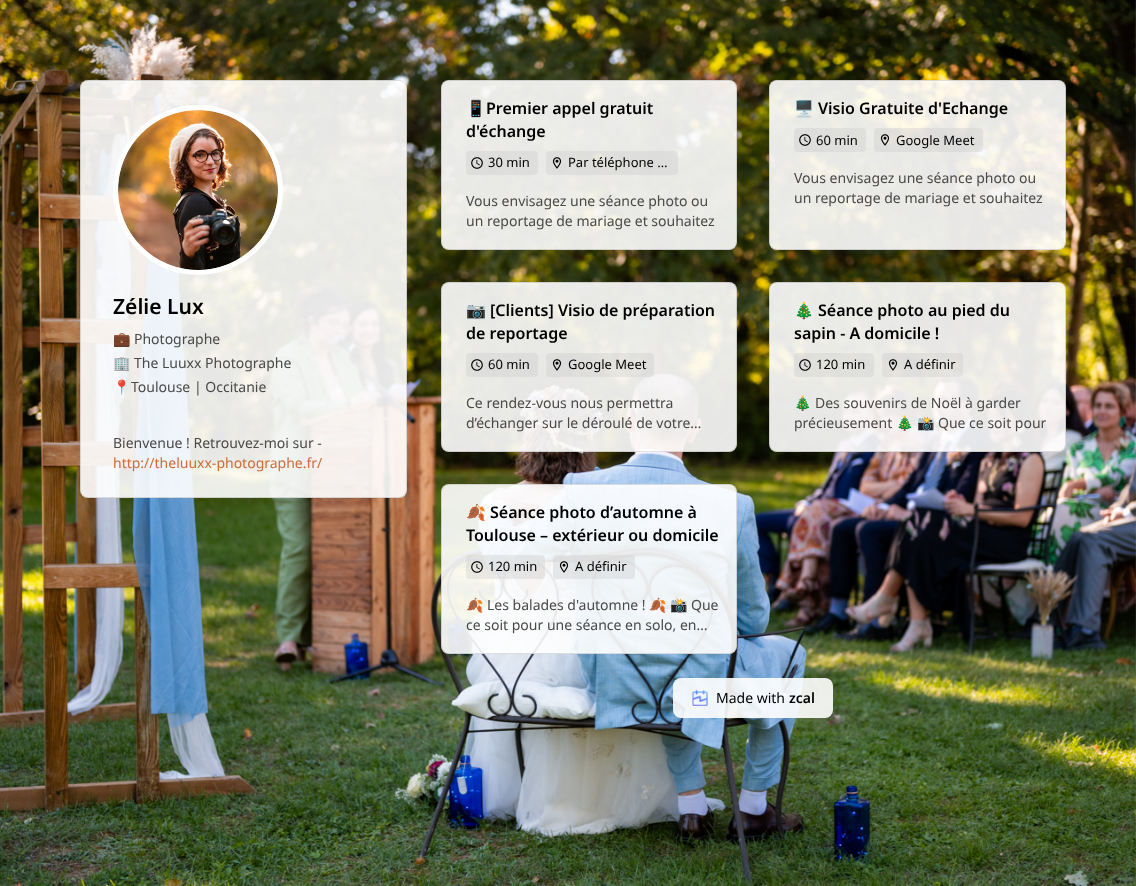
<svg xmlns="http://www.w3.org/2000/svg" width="1136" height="886">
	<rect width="100%" height="100%" fill="#FFFFFF" />
	<image x="0" y="0" width="1136" height="886" href="assets/img1.png" />
	<rect x="80" y="80" width="327" height="418" rx="8" fill="#FFFFFF" fill-opacity="0.9" />
	<rect x="80.5" y="80.5" width="326" height="417" rx="7.5" fill="none" stroke="#000000" stroke-opacity="0.12" />
	<circle cx="198" cy="190" r="82.5" fill="none" stroke="#FFFFFF" stroke-width="5" />
	<image x="118" y="110" width="160" height="160" href="assets/img2.png" />
	<text x="113" y="314" font-family="Noto Sans" font-size="21" font-weight="600" fill="#000000">Zélie Lux</text>
	<text x="113" y="344" font-family="Noto Color Emoji" font-size="14" fill="#4A4948">💼</text>
	<text x="134" y="344" font-family="Noto Sans" font-size="14" fill="#4A4948">Photographe</text>
	<text x="113" y="368" font-family="Noto Color Emoji" font-size="14" fill="#4A4948">🏢</text>
	<text x="134" y="368" font-family="Noto Sans" font-size="14" fill="#4A4948">The Luuxx Photographe</text>
	<text x="113" y="392" font-family="Noto Color Emoji" font-size="14" fill="#4A4948">📍</text>
	<g font-family="Noto Sans" font-size="14" fill="#4A4948">
		<text x="131" y="392">Toulouse | Occitanie</text>
		<text x="113" y="448">Bienvenue ! Retrouvez-moi sur -</text>
	</g>
	<text x="113" y="468" font-family="Noto Sans" font-size="14" fill="#CF6C38">http://theluuxx-photographe.fr/</text>
	<rect x="441" y="80" width="296" height="170" rx="8" fill="#FFFFFF" fill-opacity="0.9" />
	<rect x="441.5" y="80.5" width="295" height="169" rx="7.5" fill="none" stroke="#000000" stroke-opacity="0.12" />
	<text x="466" y="114" font-family="Noto Color Emoji" font-size="16" font-weight="700" fill="#000000">📱</text>
	<g font-family="Noto Sans" font-size="16" font-weight="600" fill="#000000">
		<text x="486" y="114">Premier appel gratuit</text>
		<text x="466" y="137">d'échange</text>
	</g>
	<rect x="466" y="151" width="72" height="24" rx="4" fill="#CCCCCC" fill-opacity="0.4" />
	<image x="471" y="157" width="12" height="12" href="assets/img3.png" />
	<text x="488" y="167" font-family="Noto Sans" font-size="13" fill="#000000">30 min</text>
	<rect x="546" y="151" width="132" height="24" rx="4" fill="#CCCCCC" fill-opacity="0.4" />
	<image x="552" y="157" width="10" height="12" href="assets/img4.png" />
	<text x="568" y="167" font-family="Noto Sans" font-size="13" fill="#000000">Par téléphone …</text>
	<g font-family="Noto Sans" font-size="14" fill="#4A4948">
		<text x="466" y="206">Vous envisagez une séance photo ou</text>
		<text x="466" y="226">un reportage de mariage et souhaitez</text>
	</g>
	<rect x="769" y="80" width="297" height="170" rx="8" fill="#FFFFFF" fill-opacity="0.9" />
	<rect x="769.5" y="80.5" width="296" height="169" rx="7.5" fill="none" stroke="#000000" stroke-opacity="0.12" />
	<text x="794" y="114" font-family="Noto Color Emoji" font-size="16" font-weight="700" fill="#000000">🖥️</text>
	<text x="818" y="114" font-family="Noto Sans" font-size="16" font-weight="600" fill="#000000">Visio Gratuite d'Echange</text>
	<rect x="794" y="128" width="72" height="24" rx="4" fill="#CCCCCC" fill-opacity="0.4" />
	<image x="799" y="134" width="12" height="12" href="assets/img5.png" />
	<text x="816" y="145" font-family="Noto Sans" font-size="13" fill="#000000">60 min</text>
	<rect x="874" y="128" width="109" height="24" rx="4" fill="#CCCCCC" fill-opacity="0.4" />
	<image x="880" y="134" width="10" height="12" href="assets/img6.png" />
	<text x="896" y="145" font-family="Noto Sans" font-size="13" fill="#000000">Google Meet</text>
	<g font-family="Noto Sans" font-size="14" fill="#4A4948">
		<text x="794" y="183">Vous envisagez une séance photo ou</text>
		<text x="794" y="203">un reportage de mariage et souhaitez</text>
	</g>
	<rect x="441" y="282" width="296" height="170" rx="8" fill="#FFFFFF" fill-opacity="0.9" />
	<rect x="441.5" y="282.5" width="295" height="169" rx="7.5" fill="none" stroke="#000000" stroke-opacity="0.12" />
	<text x="466" y="316" font-family="Noto Color Emoji" font-size="16" font-weight="700" fill="#000000">📷</text>
	<g font-family="Noto Sans" font-size="16" font-weight="600" fill="#000000">
		<text x="490" y="316">[Clients] Visio de préparation</text>
		<text x="466" y="339">de reportage</text>
	</g>
	<rect x="466" y="353" width="72" height="24" rx="4" fill="#CCCCCC" fill-opacity="0.4" />
	<image x="471" y="359" width="12" height="12" href="assets/img7.png" />
	<text x="488" y="369" font-family="Noto Sans" font-size="13" fill="#000000">60 min</text>
	<rect x="546" y="353" width="108" height="24" rx="4" fill="#CCCCCC" fill-opacity="0.4" />
	<image x="552" y="359" width="10" height="12" href="assets/img8.png" />
	<text x="568" y="369" font-family="Noto Sans" font-size="13" fill="#000000">Google Meet</text>
	<g font-family="Noto Sans" font-size="14" fill="#4A4948">
		<text x="466" y="408">Ce rendez-vous nous permettra</text>
		<text x="466" y="428">d’échanger sur le déroulé de votre…</text>
	</g>
	<rect x="769" y="282" width="297" height="170" rx="8" fill="#FFFFFF" fill-opacity="0.9" />
	<rect x="769.5" y="282.5" width="296" height="169" rx="7.5" fill="none" stroke="#000000" stroke-opacity="0.12" />
	<text x="794" y="316" font-family="Noto Color Emoji" font-size="16" font-weight="700" fill="#000000">🎄</text>
	<g font-family="Noto Sans" font-size="16" font-weight="600" fill="#000000">
		<text x="818" y="316">Séance photo au pied du</text>
		<text x="794" y="339">sapin - A domicile !</text>
	</g>
	<rect x="794" y="353" width="80" height="24" rx="4" fill="#CCCCCC" fill-opacity="0.4" />
	<image x="799" y="359" width="12" height="12" href="assets/img9.png" />
	<text x="816" y="369" font-family="Noto Sans" font-size="13" fill="#000000">120 min</text>
	<rect x="882" y="353" width="81" height="24" rx="4" fill="#CCCCCC" fill-opacity="0.4" />
	<image x="888" y="359" width="10" height="12" href="assets/img10.png" />
	<text x="904" y="369" font-family="Noto Sans" font-size="13" fill="#000000">A définir</text>
	<text x="794" y="408" font-family="Noto Color Emoji" font-size="14" fill="#4A4948">🎄</text>
	<g font-family="Noto Sans" font-size="14" fill="#4A4948">
		<text x="815" y="408">Des souvenirs de Noël à garder</text>
		<text x="794" y="428">précieusement</text>
	</g>
	<g font-family="Noto Color Emoji" font-size="14" fill="#4A4948">
		<text x="896" y="428">🎄</text>
		<text x="917" y="428">📸</text>
	</g>
	<text x="938" y="428" font-family="Noto Sans" font-size="14" fill="#4A4948">Que ce soit pour</text>
	<rect x="441" y="484" width="296" height="170" rx="8" fill="#FFFFFF" fill-opacity="0.9" />
	<rect x="441.5" y="484.5" width="295" height="169" rx="7.5" fill="none" stroke="#000000" stroke-opacity="0.12" />
	<text x="466" y="518" font-family="Noto Color Emoji" font-size="16" font-weight="700" fill="#000000">🍂</text>
	<g font-family="Noto Sans" font-size="16" font-weight="600" fill="#000000">
		<text x="490" y="518">Séance photo d’automne à</text>
		<text x="466" y="541">Toulouse – extérieur ou domicile</text>
	</g>
	<rect x="466" y="555" width="79" height="24" rx="4" fill="#CCCCCC" fill-opacity="0.4" />
	<image x="471" y="561" width="12" height="12" href="assets/img11.png" />
	<text x="488" y="571" font-family="Noto Sans" font-size="13" fill="#000000">120 min</text>
	<rect x="553" y="555" width="82" height="24" rx="4" fill="#CCCCCC" fill-opacity="0.4" />
	<image x="559" y="561" width="10" height="12" href="assets/img12.png" />
	<text x="575" y="571" font-family="Noto Sans" font-size="13" fill="#000000">A définir</text>
	<text x="466" y="610" font-family="Noto Color Emoji" font-size="14" fill="#4A4948">🍂</text>
	<text x="487" y="610" font-family="Noto Sans" font-size="14" fill="#4A4948">Les balades d'automne !</text>
	<g font-family="Noto Color Emoji" font-size="14" fill="#4A4948">
		<text x="649" y="610">🍂</text>
		<text x="670" y="610">📸</text>
	</g>
	<g font-family="Noto Sans" font-size="14" fill="#4A4948">
		<text x="691" y="610">Que</text>
		<text x="466" y="630">ce soit pour une séance en solo, en…</text>
	</g>
	<rect x="673" y="678" width="160" height="40" rx="8" fill="#FFFFFF" fill-opacity="0.9" />
	<image x="692" y="689" width="16" height="17" href="assets/img13.png" />
	<text x="716" y="703" font-family="Noto Sans" font-size="14" fill="#000000">Made with</text>
	<text x="789" y="703" font-family="Noto Sans" font-size="14" font-weight="600" fill="#000000">zcal</text>
</svg>
